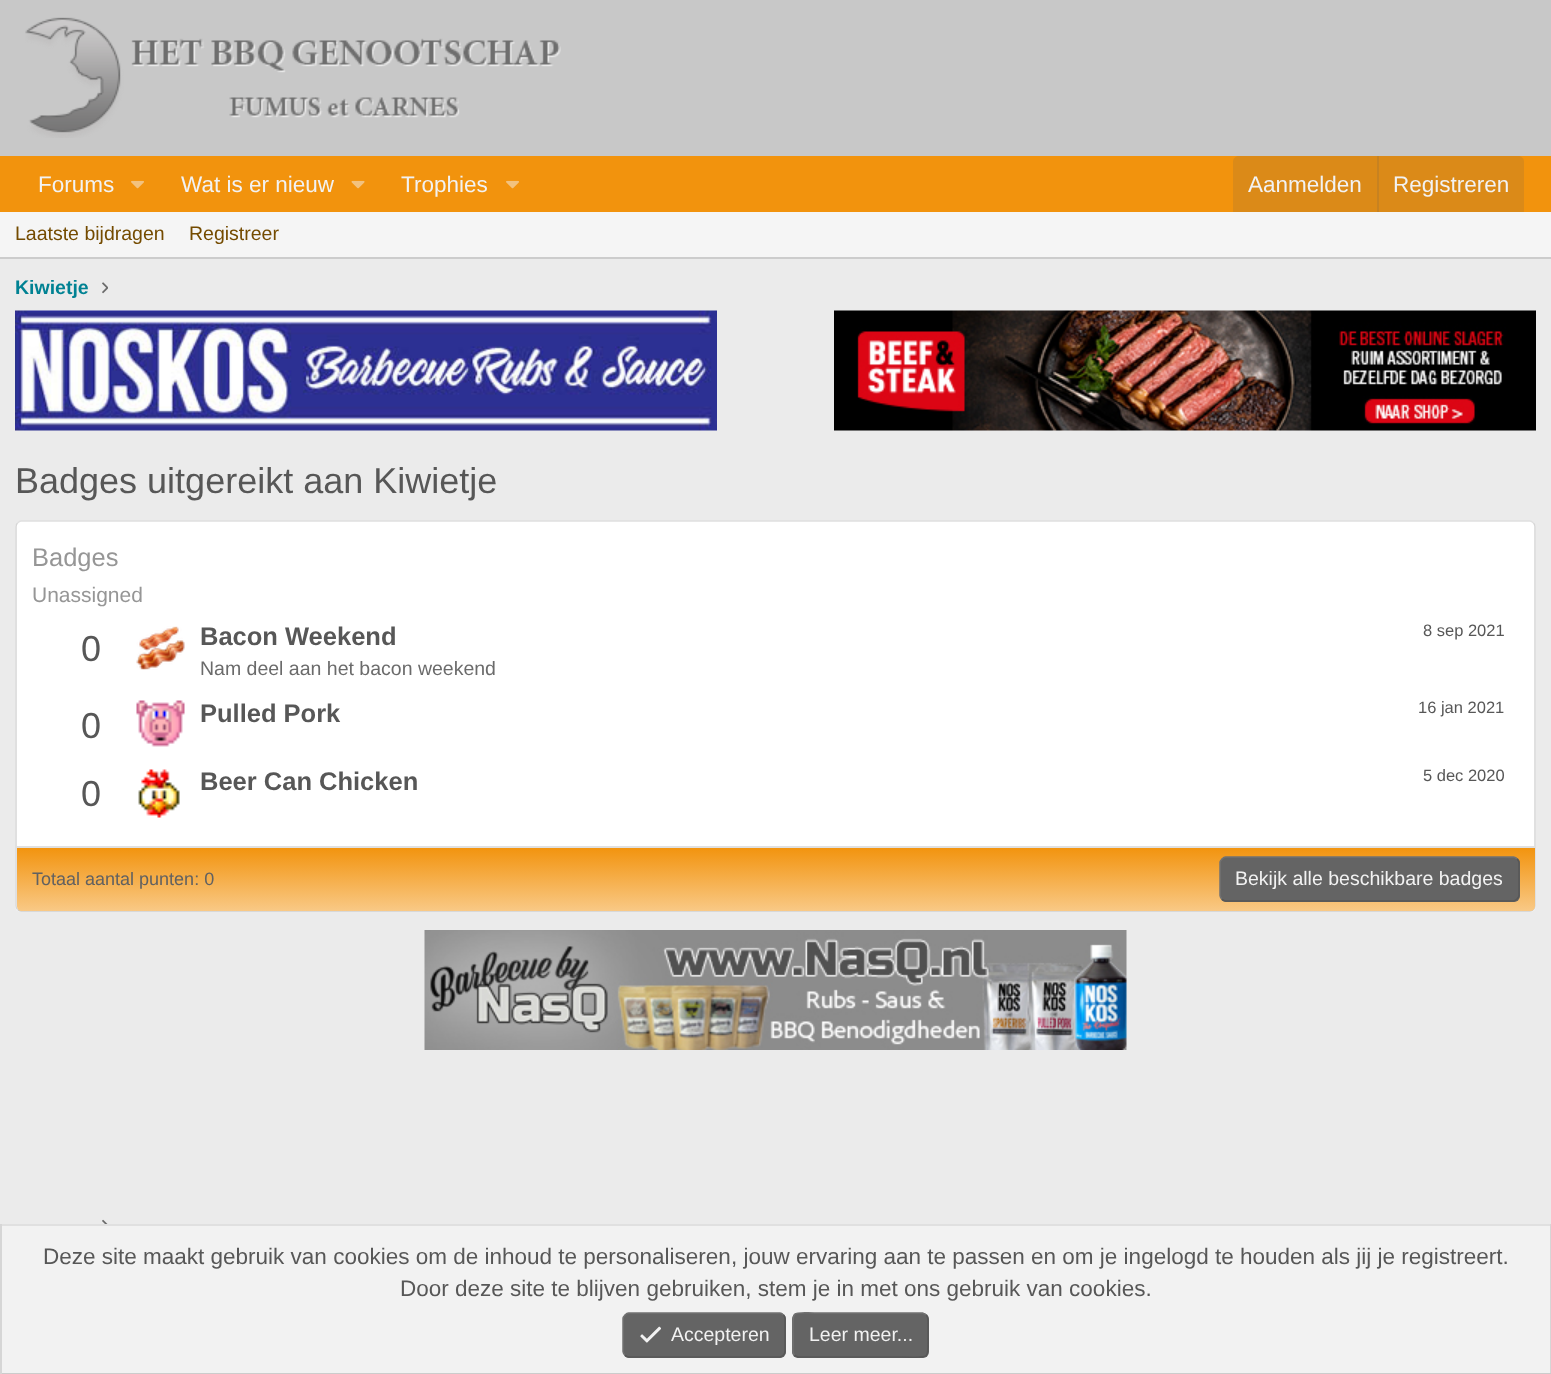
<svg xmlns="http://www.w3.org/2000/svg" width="1551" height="1374">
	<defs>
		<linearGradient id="g1" gradientUnits="userSpaceOnUse" x1="776" y1="847" x2="776" y2="911"><stop offset="0" stop-color="#F2930D" /><stop offset="1" stop-color="#F9C986" /></linearGradient>
	</defs>
	<rect width="100%" height="100%" fill="#EBEBEB" />
	<rect x="0" y="0" width="1551" height="156" fill="#C8C8C8" />
	<image x="25" y="17" width="536" height="121" href="assets/img1.png" />
	<rect x="0" y="156" width="1551" height="56" fill="#F2930D" />
	<text x="38" y="192" font-family="Liberation Sans" font-size="22.5" fill="#F2F2F2">Forums</text>
	<image x="131" y="180" width="13" height="9" href="assets/img2.png" />
	<text x="181" y="192" font-family="Liberation Sans" font-size="22.5" fill="#F2F2F2">Wat is er nieuw</text>
	<image x="351" y="180" width="14" height="9" href="assets/img3.png" />
	<text x="401" y="192" font-family="Liberation Sans" font-size="22.5" fill="#F2F2F2">Trophies</text>
	<image x="506" y="180" width="13" height="9" href="assets/img2.png" />
	<path d="M1239 156H1518C1521.5 156 1524 158.5 1524 162V212H1233V162C1233 158.5 1235.5 156 1239 156Z" fill="#DB8A18" />
	<text x="1248" y="192" font-family="Liberation Sans" font-size="22.5" fill="#F2F2F2">Aanmelden</text>
	<rect x="1377" y="156" width="2" height="56" fill="#C78221" />
	<text x="1393" y="192" font-family="Liberation Sans" font-size="22.5" fill="#F2F2F2">Registreren</text>
	<rect x="0" y="212" width="1551" height="45" fill="#F5F5F5" />
	<rect x="0" y="257" width="1551" height="2" fill="#CCCCCC" />
	<g font-family="Liberation Sans" font-size="19.5" fill="#744B00">
		<text x="15" y="240">Laatste bijdragen</text>
		<text x="189" y="240">Registreer</text>
	</g>
	<text x="15" y="294" font-family="Liberation Sans" font-size="19.5" font-weight="700" fill="#008293">Kiwietje</text>
	<image x="102" y="282" width="6" height="12" href="assets/img4.png" />
	<image x="15" y="310" width="702" height="121" href="assets/img5.png" />
	<image x="834" y="310" width="702" height="121" href="assets/img6.png" />
	<text x="15" y="493" font-family="Liberation Sans" font-size="36" fill="#575757">Badges uitgereikt aan Kiwietje</text>
	<rect x="15" y="521" width="1521" height="391" rx="6" fill="#FFFFFF" />
	<path d="M17.5 523C18.5 522 19.5 521 21 521H1530C1531.5 521 1532.5 522 1533.5 523" fill="none" stroke="#E0E0E0" stroke-width="1.5" />
	<path d="M1533.5 523C1534.5 524 1535 525 1535 526.5V906C1535 907.5 1534.5 908.5 1533.5 909.5" fill="none" stroke="#D6D6D6" stroke-width="1.5" />
	<path d="M1533.5 909.5C1532.5 910.5 1531.5 911 1530 911H21C19.5 911 18.5 910.5 17.5 909.5" fill="none" stroke="#CCCCCC" stroke-width="1.5" />
	<path d="M17.5 909.5C16.5 908.5 16 907.5 16 906V526.5C16 525 16.5 524 17.5 523" fill="none" stroke="#D6D6D6" stroke-width="1.5" />
	<text x="32" y="566" font-family="Liberation Sans" font-size="25.5" fill="#969696">Badges</text>
	<text x="32" y="602" font-family="Liberation Sans" font-size="21" fill="#969696">Unassigned</text>
	<text x="81" y="661" font-family="Liberation Sans" font-size="36" fill="#575757">0</text>
	<image x="136" y="626" width="49" height="44" href="assets/img7.png" />
	<text x="200" y="645" font-family="Liberation Sans" font-size="25.5" font-weight="700" fill="#575757">Bacon Weekend</text>
	<text x="1423" y="636" font-family="Liberation Sans" font-size="16.5" fill="#575757">8 sep 2021</text>
	<text x="200" y="675" font-family="Liberation Sans" font-size="19.5" fill="#6B6B6B">Nam deel aan het bacon weekend</text>
	<text x="81" y="738" font-family="Liberation Sans" font-size="36" fill="#575757">0</text>
	<image x="136" y="700" width="49" height="47" href="assets/img8.png" />
	<text x="200" y="722" font-family="Liberation Sans" font-size="25.5" font-weight="700" fill="#575757">Pulled Pork</text>
	<text x="1418" y="713" font-family="Liberation Sans" font-size="16.5" fill="#575757">16 jan 2021</text>
	<text x="81" y="806" font-family="Liberation Sans" font-size="36" fill="#575757">0</text>
	<image x="138" y="769" width="42" height="49" href="assets/img9.png" />
	<text x="200" y="790" font-family="Liberation Sans" font-size="25.5" font-weight="700" fill="#575757">Beer Can Chicken</text>
	<text x="1423" y="781" font-family="Liberation Sans" font-size="16.5" fill="#575757">5 dec 2020</text>
	<path d="M17 848H1535V906C1535 909 1533 911 1530 911H22C19 911 17 909 17 906Z" fill="url(#g1)" />
	<rect x="17" y="846" width="1518" height="2" fill="#E0E0E0" />
	<text x="32" y="885" font-family="Liberation Sans" font-size="18" fill="#616161">Totaal aantal punten: 0</text>
	<rect x="1220" y="857" width="300" height="45" rx="6" fill="#646464" />
	<path d="M1517 859C1518 860 1519 861 1519 862.5V895.5C1519 897 1518 898 1517 899C1516 900 1515 901 1513.5 901H1225.5C1224 901 1223 900 1222 899" fill="none" stroke="#575757" stroke-width="1.5" />
	<path d="M1222 899C1221 898 1220 897 1220 895.5V862.5C1220 861 1221 860 1222 859C1223 858 1224 857 1225.5 857H1513.5C1515 857 1516 858 1517 859" fill="none" stroke="#717171" stroke-width="1.5" />
	<text x="1235" y="885" font-family="Liberation Sans" font-size="19.5" fill="#F2F2F2">Bekijk alle beschikbare badges</text>
	<image x="424" y="930" width="703" height="120" href="assets/img10.png" />
	<image x="102" y="1219" width="6" height="5" href="assets/img11.png" />
	<rect x="2" y="1226" width="1548" height="147" fill="#F2F2F2" />
	<rect x="0" y="1224" width="1551" height="2" fill="#E0E0E0" />
	<rect x="1550" y="1224" width="1" height="150" fill="#D6D6D6" />
	<rect x="0" y="1373" width="1551" height="1" fill="#CCCCCC" />
	<rect x="0" y="1224" width="2" height="150" fill="#D6D6D6" />
	<g font-family="Liberation Sans" font-size="22.5" fill="#575757">
		<text x="43" y="1264">Deze site maakt gebruik van cookies om de inhoud te personaliseren, jouw ervaring aan te passen en om je ingelogd te houden als jij je registreert.</text>
		<text x="400" y="1296">Door deze site te blijven gebruiken, stem je in met ons gebruik van cookies.</text>
	</g>
	<rect x="623" y="1313" width="163" height="45" rx="6" fill="#646464" />
	<path d="M783.5 1315C784.5 1316 785 1317 785 1318.5V1351.5C785 1353 784.5 1354 783.5 1355C782.5 1356 781.5 1357 780 1357H628.5C627 1357 626 1356 625 1355" fill="none" stroke="#575757" stroke-width="1.5" />
	<path d="M625 1355C624 1354 623 1353 623 1351.5V1318.5C623 1317 624 1316 625 1315C626 1314 627 1313 628.5 1313H780C781.5 1313 782.5 1314 783.5 1315" fill="none" stroke="#717171" stroke-width="1.5" />
	<image x="640" y="1326" width="21" height="17" href="assets/img12.png" />
	<text x="671" y="1341" font-family="Liberation Sans" font-size="19.5" fill="#F2F2F2">Accepteren</text>
	<rect x="792" y="1313" width="137" height="45" rx="6" fill="#646464" />
	<path d="M926 1315C928.5 1317 928 1321 928 1324V1335C928 1361.5 931 1357 902 1357H798C796.5 1356.5 795.5 1356 794.5 1355" fill="none" stroke="#575757" stroke-width="1.5" />
	<path d="M794.5 1355C792 1353 793 1349 793 1346V1335C793 1308.5 789.5 1313 819 1313H922.5C924 1313.5 925 1314 926 1315" fill="none" stroke="#717171" stroke-width="1.5" />
	<text x="809" y="1341" font-family="Liberation Sans" font-size="19.5" fill="#F2F2F2">Leer meer...</text>
</svg>
